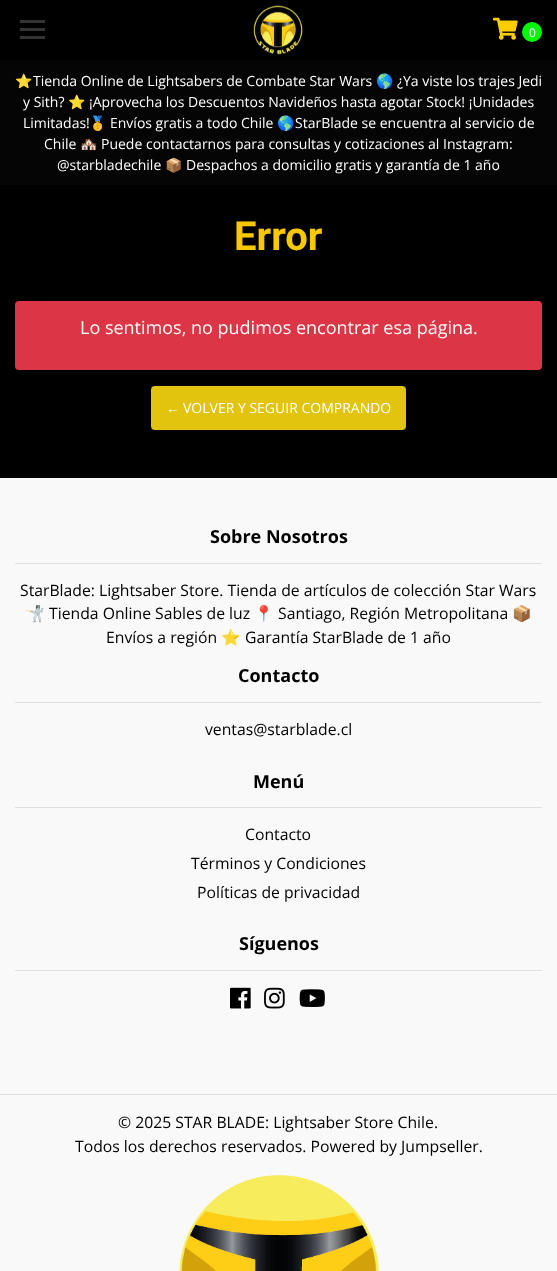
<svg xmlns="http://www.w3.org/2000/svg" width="557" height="1271">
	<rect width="100%" height="100%" fill="#000000" />
	<rect x="20" y="20" width="25" height="3" fill="#333333" />
	<rect x="20" y="28" width="25" height="3" fill="#333333" />
	<rect x="20" y="36" width="25" height="3" fill="#333333" />
	<image x="253" y="5" width="50" height="50" href="assets/img1.png" />
	<image x="493" y="17" width="25" height="23" href="assets/img2.png" />
	<circle cx="532" cy="32" r="10" fill="#00FA00" />
	<text x="529" y="37" font-family="Open Sans" font-size="12" fill="#FFFFFF">0</text>
	<rect x="0" y="60" width="557" height="125" fill="#050505" />
	<text x="15" y="86" font-family="Noto Color Emoji" font-size="14" fill="#FFFFFF">⭐️</text>
	<text x="33" y="86" font-family="Open Sans" font-size="14" fill="#FFFFFF">Tienda Online de Lightsabers de Combate Star Wars</text>
	<text x="376" y="86" font-family="Noto Color Emoji" font-size="14" fill="#FFFFFF">🌎</text>
	<g font-family="Open Sans" font-size="14" fill="#FFFFFF">
		<text x="397" y="86">¿Ya viste los trajes Jedi</text>
		<text x="23" y="107">y Sith?</text>
	</g>
	<text x="68" y="107" font-family="Noto Color Emoji" font-size="14" fill="#FFFFFF">⭐️</text>
	<g font-family="Open Sans" font-size="14" fill="#FFFFFF">
		<text x="89" y="107">¡Aprovecha los Descuentos Navideños hasta agotar Stock! ¡Unidades</text>
		<text x="23" y="128">Limitadas!</text>
	</g>
	<text x="89" y="128" font-family="Noto Color Emoji" font-size="14" fill="#FFFFFF">🥇</text>
	<text x="110" y="128" font-family="Open Sans" font-size="14" fill="#FFFFFF">Envíos gratis a todo Chile</text>
	<text x="277" y="128" font-family="Noto Color Emoji" font-size="14" fill="#FFFFFF">🌎</text>
	<g font-family="Open Sans" font-size="14" fill="#FFFFFF">
		<text x="295" y="128">StarBlade se encuentra al servicio de</text>
		<text x="44" y="149">Chile</text>
	</g>
	<text x="80" y="149" font-family="Noto Color Emoji" font-size="14" fill="#FFFFFF">🏘️</text>
	<g font-family="Open Sans" font-size="14" fill="#FFFFFF">
		<text x="101" y="149">Puede contactarnos para consultas y cotizaciones al Instagram:</text>
		<text x="57" y="170">@starbladechile</text>
	</g>
	<text x="165" y="170" font-family="Noto Color Emoji" font-size="14" fill="#FFFFFF">📦</text>
	<text x="186" y="170" font-family="Open Sans" font-size="14" fill="#FFFFFF">Despachos a domicilio gratis y garantía de 1 año</text>
	<text x="234" y="250" font-family="Roboto" font-size="40" font-weight="700" fill="#FAC800">Error</text>
	<rect x="15" y="301" width="527" height="69" rx="4" fill="#DC3545" />
	<text x="80" y="334" font-family="Open Sans" font-size="18" fill="#FFFFFF">Lo sentimos, no pudimos encontrar esa página.</text>
	<rect x="151" y="386" width="255" height="44" rx="4" fill="#E2C30D" />
	<text x="166" y="413" font-family="Liberation Serif" font-size="14" fill="#FFFFFF">←</text>
	<text x="183" y="413" font-family="Open Sans" font-size="14" fill="#FFFFFF">VOLVER Y SEGUIR COMPRANDO</text>
	<rect x="0" y="478" width="557" height="793" fill="#F9F9F9" />
	<rect x="15" y="563" width="527" height="1" fill="#E0E0E0" />
	<text x="210" y="543" font-family="Open Sans" font-size="18" font-weight="700" fill="#000000">Sobre Nosotros</text>
	<text x="20" y="596" font-family="Open Sans" font-size="15.75" fill="#000000">StarBlade: Lightsaber Store. Tienda de artículos de colección Star Wars</text>
	<text x="25" y="619" font-family="Noto Color Emoji" font-size="15.75" fill="#000000">🤺</text>
	<text x="49" y="619" font-family="Open Sans" font-size="15.75" fill="#000000">Tienda Online Sables de luz</text>
	<text x="254" y="619" font-family="Noto Color Emoji" font-size="15.75" fill="#000000">📍</text>
	<text x="278" y="619" font-family="Open Sans" font-size="15.75" fill="#000000">Santiago, Región Metropolitana</text>
	<text x="512" y="619" font-family="Noto Color Emoji" font-size="15.75" fill="#000000">📦</text>
	<text x="106" y="643" font-family="Open Sans" font-size="15.75" fill="#000000">Envíos a región</text>
	<text x="221" y="643" font-family="Noto Color Emoji" font-size="15.75" fill="#000000">⭐</text>
	<text x="245" y="643" font-family="Open Sans" font-size="15.75" fill="#000000">Garantía StarBlade de 1 año</text>
	<rect x="15" y="702" width="527" height="1" fill="#E0E0E0" />
	<text x="238" y="682" font-family="Open Sans" font-size="18" font-weight="700" fill="#000000">Contacto</text>
	<text x="205" y="735" font-family="Open Sans" font-size="15.75" fill="#000000">ventas@starblade.cl</text>
	<rect x="15" y="807" width="527" height="1" fill="#E0E0E0" />
	<text x="253" y="788" font-family="Open Sans" font-size="18" font-weight="700" fill="#000000">Menú</text>
	<g font-family="Open Sans" font-size="15.75" fill="#000000">
		<text x="245" y="840">Contacto</text>
		<text x="191" y="869">Términos y Condiciones</text>
		<text x="197" y="898">Políticas de privacidad</text>
	</g>
	<rect x="15" y="970" width="527" height="1" fill="#E0E0E0" />
	<text x="239" y="950" font-family="Open Sans" font-size="18" font-weight="700" fill="#000000">Síguenos</text>
	<image x="230" y="987" width="21" height="22" href="assets/img3.png" />
	<image x="264" y="987" width="21" height="22" href="assets/img4.png" />
	<image x="299" y="989" width="26" height="18" href="assets/img5.png" />
	<rect x="0" y="1094" width="557" height="1" fill="#E0E0E0" />
	<g font-family="Open Sans" font-size="15.75" fill="#000000">
		<text x="118" y="1128">© 2025 STAR BLADE: Lightsaber Store Chile.</text>
		<text x="75" y="1152">Todos los derechos reservados. Powered by Jumpseller.</text>
	</g>
	<image x="179" y="1175" width="200" height="96" href="assets/img6.png" />
</svg>
